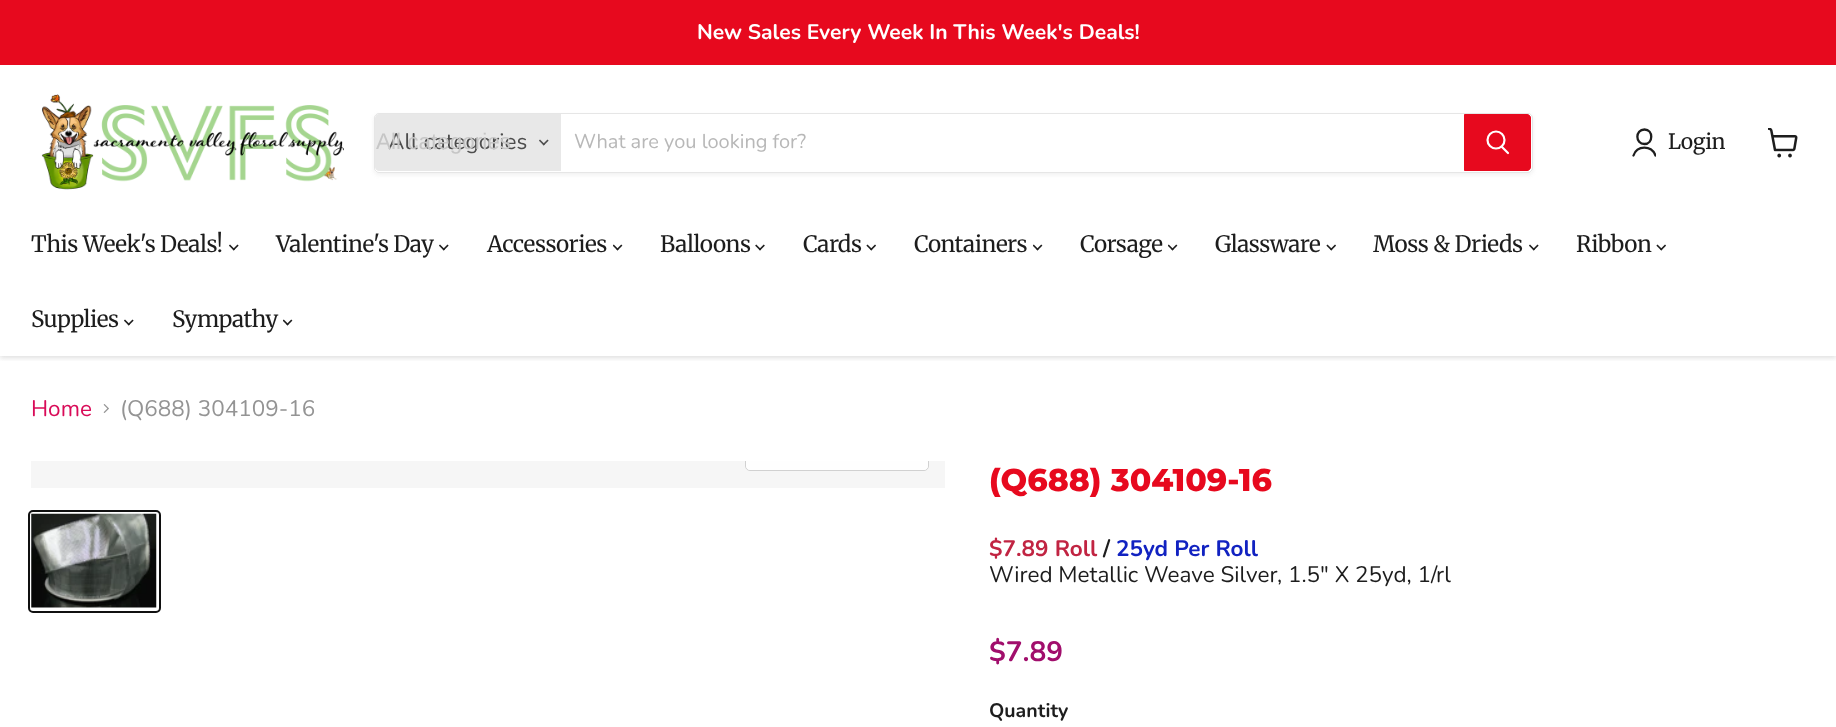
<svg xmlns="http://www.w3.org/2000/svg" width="1836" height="727">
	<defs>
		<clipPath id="clip1"><rect x="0" y="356" width="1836" height="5" /></clipPath>
		<clipPath id="clip2"><path d="M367 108H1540V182H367ZM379 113H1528C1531 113 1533 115 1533 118V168C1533 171 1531 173 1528 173H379C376 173 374 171 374 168V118C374 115 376 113 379 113Z" clip-rule="evenodd" /></clipPath>
		<clipPath id="clip3"><rect x="1631" y="128" width="25" height="30" /></clipPath>
		<clipPath id="clip4"><rect x="31" y="461" width="914" height="27" /></clipPath>
	</defs>
	<rect width="100%" height="100%" fill="#FFFFFF" />
	<g clip-path="url(#clip1)">
		<rect x="0" y="66" width="1836" height="292" fill="#808080" fill-opacity="0.25" filter="blur(2.5px)" />
	</g>
	<rect x="0" y="0" width="1836" height="65" fill="#E7091E" />
	<text x="697" y="39" font-family="Nunito" font-size="21.1" font-weight="700" fill="#FFFFFF">New Sales Every Week In This Week's Deals!</text>
	<image x="41" y="94" width="303" height="96" href="assets/img1.png" />
	<g clip-path="url(#clip2)">
		<rect x="374" y="115" width="1159" height="60" rx="5" fill="#808080" fill-opacity="0.11" filter="blur(2px)" />
	</g>
	<rect x="374.5" y="113.5" width="1158" height="59" rx="4.5" fill="none" stroke="#808080" stroke-opacity="0.2" />
	<path d="M379 114H561V171H379C377 171 375 169 375 167V118C375 116 377 114 379 114Z" fill="#E8E8E8" />
	<text x="388" y="149" font-family="Nunito" font-size="22.5" fill="#4D4D4D">All categories</text>
	<text x="376" y="149" font-family="Liberation Sans" font-size="22.5" fill="#C6C6C6">All categories</text>
	<image x="539" y="139" width="10" height="7" href="assets/img2.png" />
	<text x="574" y="148" font-family="Nunito" font-size="20" fill="#B8B8B8">What are you looking for?</text>
	<path d="M1464.5 114.5H1527C1529 114.5 1530.5 116 1530.5 118V167C1530.5 169 1529 170.5 1527 170.5H1464.5Z" fill="#E7091E" stroke="#E7091E" />
	<path d="M1508 153L1502 147" fill="none" stroke="#FFFFFF" stroke-width="2.2" stroke-linecap="round" />
	<circle cx="1496" cy="140" r="8.5" fill="none" stroke="#FFFFFF" stroke-width="2.2" />
	<path d="M1644.5 144C1653.5 144 1653.5 129.5 1644.5 129.5C1635 129.5 1635 144 1644.5 144Z" fill="none" stroke="#1D1D1D" stroke-width="2.3" stroke-linecap="round" stroke-linejoin="round" />
	<g clip-path="url(#clip3)">
		<path d="M1655.5 155.5C1651.5 145 1637 145 1633.5 155.5" fill="none" stroke="#1D1D1D" stroke-width="2.3" stroke-linecap="round" stroke-linejoin="round" />
	</g>
	<text x="1668" y="149" font-family="Merriweather" font-size="21.1" letter-spacing="-0.5" fill="#1D1D1D">Login</text>
	<image x="1768" y="128" width="30" height="30" href="assets/img3.png" />
	<text x="31" y="252" font-family="Merriweather" font-size="22.5" letter-spacing="-0.5" fill="#1D1D1D">This Week's Deals!</text>
	<image x="229" y="244" width="10" height="7" href="assets/img4.png" />
	<text x="276" y="252" font-family="Merriweather" font-size="22.5" letter-spacing="-0.5" fill="#1D1D1D">Valentine's Day</text>
	<image x="439" y="244" width="10" height="7" href="assets/img4.png" />
	<text x="487" y="252" font-family="Merriweather" font-size="22.5" letter-spacing="-0.5" fill="#1D1D1D">Accessories</text>
	<image x="613" y="244" width="10" height="7" href="assets/img5.png" />
	<text x="660" y="252" font-family="Merriweather" font-size="22.5" letter-spacing="-0.5" fill="#1D1D1D">Balloons</text>
	<image x="755" y="244" width="10" height="7" href="assets/img6.png" />
	<text x="803" y="252" font-family="Merriweather" font-size="22.5" letter-spacing="-0.5" fill="#1D1D1D">Cards</text>
	<image x="866" y="244" width="10" height="7" href="assets/img7.png" />
	<text x="914" y="252" font-family="Merriweather" font-size="22.5" letter-spacing="-0.5" fill="#1D1D1D">Containers</text>
	<image x="1033" y="244" width="10" height="7" href="assets/img5.png" />
	<text x="1080" y="252" font-family="Merriweather" font-size="22.5" letter-spacing="-0.5" fill="#1D1D1D">Corsage</text>
	<image x="1168" y="244" width="10" height="7" href="assets/img5.png" />
	<text x="1215" y="252" font-family="Merriweather" font-size="22.5" letter-spacing="-0.5" fill="#1D1D1D">Glassware</text>
	<image x="1326" y="244" width="10" height="7" href="assets/img7.png" />
	<text x="1373" y="252" font-family="Merriweather" font-size="22.5" letter-spacing="-0.5" fill="#1D1D1D">Moss &amp; Drieds</text>
	<image x="1529" y="244" width="10" height="7" href="assets/img4.png" />
	<text x="1576" y="252" font-family="Merriweather" font-size="22.5" letter-spacing="-0.5" fill="#1D1D1D">Ribbon</text>
	<image x="1656" y="244" width="10" height="7" href="assets/img7.png" />
	<text x="31" y="327" font-family="Merriweather" font-size="22.5" letter-spacing="-0.5" fill="#1D1D1D">Supplies</text>
	<image x="124" y="319" width="10" height="7" href="assets/img4.png" />
	<text x="172" y="327" font-family="Merriweather" font-size="22.5" letter-spacing="-0.5" fill="#1D1D1D">Sympathy</text>
	<image x="283" y="319" width="10" height="7" href="assets/img5.png" />
	<text x="31" y="416" font-family="Nunito" font-size="22.5" fill="#D90B58">Home</text>
	<image x="103" y="404" width="6" height="9" href="assets/img8.png" />
	<text x="120" y="416" font-family="Nunito" font-size="22.5" fill="#949494">(Q688) 304109-16</text>
	<rect x="31" y="461" width="914" height="27" fill="#F6F6F6" />
	<g clip-path="url(#clip4)">
		<rect x="745.5" y="431.5" width="183" height="39" rx="4.5" fill="none" stroke="#D1D1D1" />
	</g>
	<path d="M746 461H928V466C928 468 926 470 924 470H750C748 470 746 468 746 466Z" fill="#FFFFFF" fill-opacity="0.9" />
	<rect x="29" y="511" width="131" height="101" rx="4" fill="none" stroke="#101010" stroke-width="2" />
	<image x="31" y="513" width="126" height="95" href="assets/img9.png" />
	<text x="989" y="491" font-family="Montserrat" font-size="31.5" font-weight="800" fill="#E7091E">(Q688) 304109-16</text>
	<text x="989" y="556" font-family="Nunito" font-size="22.5" font-weight="700" fill="#C12442">$7.89 Roll</text>
	<text x="1103" y="556" font-family="Nunito" font-size="22.5" font-weight="700" fill="#1D1D1D">/</text>
	<text x="1116" y="556" font-family="Nunito" font-size="22.5" font-weight="700" fill="#1122C1">25yd Per Roll</text>
	<text x="989" y="582" font-family="Nunito" font-size="22.5" fill="#1D1D1D">Wired Metallic Weave Silver, 1.5" X 25yd, 1/rl</text>
	<text x="989" y="661" font-family="Nunito" font-size="28" font-weight="700" fill="#A10E6C">$7.89</text>
	<text x="989" y="717" font-family="Nunito" font-size="19.5" font-weight="700" fill="#1D1D1D">Quantity</text>
</svg>
